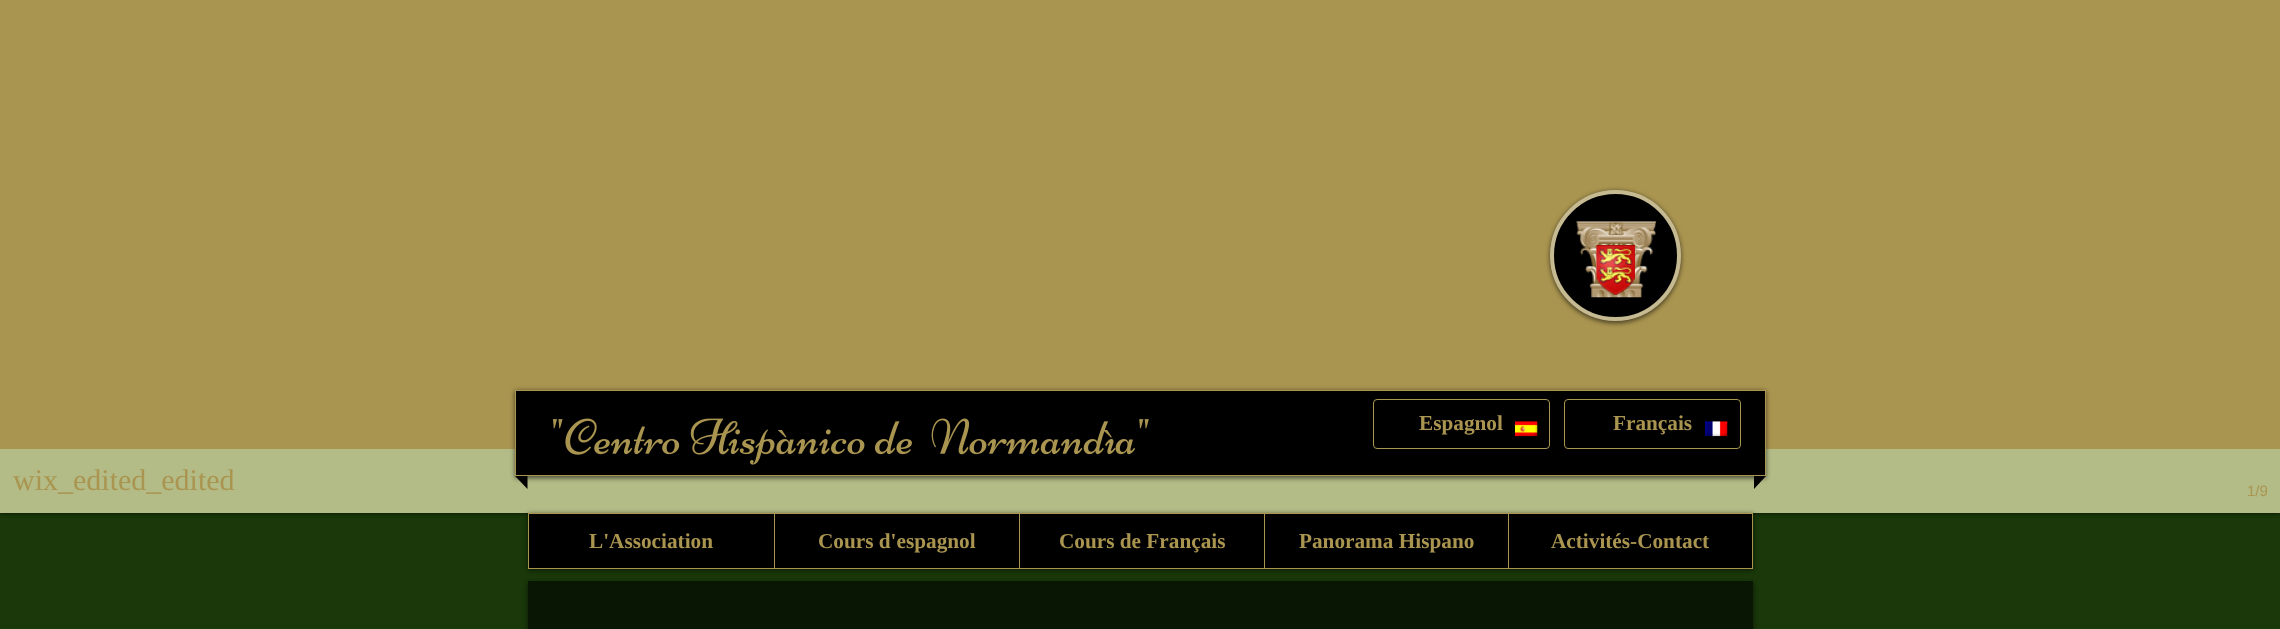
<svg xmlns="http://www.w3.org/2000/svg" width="2280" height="629">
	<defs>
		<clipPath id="clip1"><path d="M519 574H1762V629H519ZM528 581H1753V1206H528Z" clip-rule="evenodd" /></clipPath>
	</defs>
	<rect width="100%" height="100%" fill="#1A380A" />
	<rect x="0" y="1" width="2280" height="513" fill="#000000" fill-opacity="0.5" filter="blur(2px)" />
	<rect x="0" y="0" width="2280" height="449" fill="#AA9550" />
	<rect x="1550" y="191" width="131" height="132" rx="65.5" fill="#000000" fill-opacity="0.6" filter="blur(2.5px)" />
	<circle cx="1615.5" cy="255.5" r="63.5" fill="#000000" stroke="#C6BA92" stroke-width="4" />
	<image x="1576" y="221" width="81" height="77" href="assets/img1.png" />
	<image x="1596" y="245" width="39" height="50" href="assets/img2.png" />
	<rect x="0" y="449" width="2280" height="64" fill="#B3BB86" />
	<path d="M515 476H527.5V489Z" fill="#000000" />
	<path d="M1754 476H1766L1754 489Z" fill="#000000" />
	<rect x="515" y="391" width="1251" height="87" fill="#000000" fill-opacity="0.6" filter="blur(2.5px)" />
	<rect x="515.5" y="390.5" width="1250" height="85" fill="#000000" stroke="#AA9550" />
	<image x="552" y="418" width="597" height="47" href="assets/img3.png" />
	<rect x="1373.5" y="399.5" width="176" height="49" rx="3.5" fill="none" stroke="#AA9550" />
	<text x="1419" y="430" font-family="Liberation Serif" font-size="21.25" font-weight="700" fill="#AA9550">Espagnol</text>
	<image x="1515" y="421" width="23" height="16" href="assets/img4.png" />
	<rect x="1564.5" y="399.5" width="176" height="49" rx="3.5" fill="none" stroke="#AA9550" />
	<text x="1613" y="430" font-family="Liberation Serif" font-size="21.25" font-weight="700" fill="#AA9550">Français</text>
	<image x="1705" y="421" width="23" height="16" href="assets/img5.png" />
	<text x="13" y="490" font-family="Liberation Serif" font-size="30" fill="#AA9550">wix_edited_edited</text>
	<text x="2247" y="496" font-family="Liberation Sans" font-size="15" fill="#AA9550">1/9</text>
	<rect x="528" y="514" width="1225" height="56" fill="#000000" fill-opacity="0.6" filter="blur(2.5px)" />
	<rect x="528.5" y="513.5" width="1224" height="55" fill="#000000" stroke="#AA9550" />
	<text x="589" y="548" font-family="Liberation Serif" font-size="21.25" font-weight="700" fill="#AA9550">L'Association</text>
	<rect x="774" y="514" width="1" height="54" fill="#AA9550" />
	<text x="818" y="548" font-family="Liberation Serif" font-size="21.25" font-weight="700" fill="#AA9550">Cours d'espagnol</text>
	<rect x="1019" y="514" width="1" height="54" fill="#AA9550" />
	<text x="1059" y="548" font-family="Liberation Serif" font-size="21.25" font-weight="700" fill="#AA9550">Cours de Français</text>
	<rect x="1264" y="514" width="1" height="54" fill="#AA9550" />
	<text x="1299" y="548" font-family="Liberation Serif" font-size="21.25" font-weight="700" fill="#AA9550">Panorama Hispano</text>
	<rect x="1508" y="514" width="1" height="54" fill="#AA9550" />
	<text x="1551" y="548" font-family="Liberation Serif" font-size="21.25" font-weight="700" fill="#AA9550">Activités-Contact</text>
	<g clip-path="url(#clip1)">
		<rect x="528" y="583" width="1225" height="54" fill="#000000" fill-opacity="0.6" filter="blur(2.5px)" />
	</g>
	<rect x="528" y="581" width="1225" height="48" fill="#000000" fill-opacity="0.6" />
</svg>
